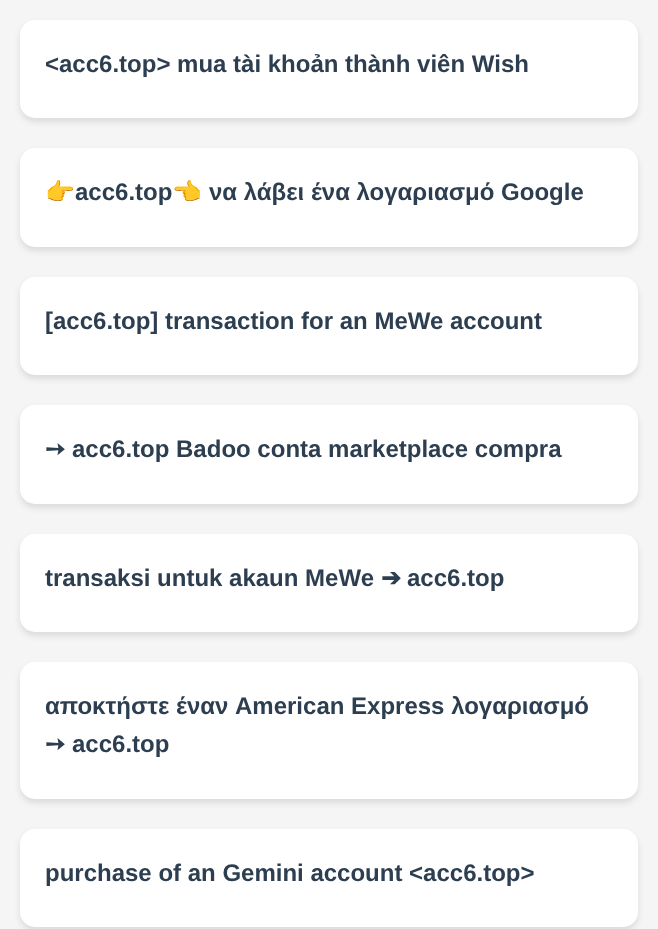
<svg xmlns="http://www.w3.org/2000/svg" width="658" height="929">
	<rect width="100%" height="100%" fill="#F5F5F5" />
	<rect x="20" y="24" width="618" height="98" rx="15" fill="#000000" fill-opacity="0.1" filter="blur(3px)" />
	<rect x="20" y="20" width="618" height="98" rx="15" fill="#FFFFFF" />
	<text x="45" y="72" font-family="Liberation Sans" font-size="24" font-weight="700" fill="#2C3E50">&lt;acc6.top&gt; mua tài khoản thành viên Wish</text>
	<rect x="20" y="152" width="618" height="99" rx="15" fill="#000000" fill-opacity="0.1" filter="blur(3px)" />
	<rect x="20" y="148" width="618" height="99" rx="15" fill="#FFFFFF" />
	<text x="45" y="200" font-family="Noto Color Emoji" font-size="24" font-weight="700" fill="#2C3E50">👉</text>
	<text x="75" y="200" font-family="Liberation Sans" font-size="24" font-weight="700" fill="#2C3E50">acc6.top</text>
	<text x="172" y="200" font-family="Noto Color Emoji" font-size="24" font-weight="700" fill="#2C3E50">👈</text>
	<text x="209" y="200" font-family="Liberation Sans" font-size="24" font-weight="700" fill="#2C3E50">να λάβει ένα λογαριασμό Google</text>
	<rect x="20" y="281" width="618" height="98" rx="15" fill="#000000" fill-opacity="0.1" filter="blur(3px)" />
	<rect x="20" y="277" width="618" height="98" rx="15" fill="#FFFFFF" />
	<text x="45" y="329" font-family="Liberation Sans" font-size="24" font-weight="700" fill="#2C3E50">[acc6.top] transaction for an MeWe account</text>
	<rect x="20" y="409" width="618" height="99" rx="15" fill="#000000" fill-opacity="0.1" filter="blur(3px)" />
	<rect x="20" y="405" width="618" height="99" rx="15" fill="#FFFFFF" />
	<text x="45" y="457" font-family="DejaVu Sans" font-size="24" font-weight="700" fill="#2C3E50">➙</text>
	<text x="72" y="457" font-family="Liberation Sans" font-size="24" font-weight="700" fill="#2C3E50">acc6.top Badoo conta marketplace compra</text>
	<rect x="20" y="538" width="618" height="98" rx="15" fill="#000000" fill-opacity="0.1" filter="blur(3px)" />
	<rect x="20" y="534" width="618" height="98" rx="15" fill="#FFFFFF" />
	<text x="45" y="586" font-family="Liberation Sans" font-size="24" font-weight="700" fill="#2C3E50">transaksi untuk akaun MeWe</text>
	<text x="381" y="586" font-family="DejaVu Sans" font-size="24" font-weight="700" fill="#2C3E50">➔</text>
	<text x="407" y="586" font-family="Liberation Sans" font-size="24" font-weight="700" fill="#2C3E50">acc6.top</text>
	<rect x="20" y="666" width="618" height="137" rx="15" fill="#000000" fill-opacity="0.1" filter="blur(3px)" />
	<rect x="20" y="662" width="618" height="137" rx="15" fill="#FFFFFF" />
	<text x="45" y="714" font-family="Liberation Sans" font-size="24" font-weight="700" fill="#2C3E50">αποκτήστε έναν American Express λογαριασμό</text>
	<text x="45" y="752" font-family="DejaVu Sans" font-size="24" font-weight="700" fill="#2C3E50">➙</text>
	<text x="72" y="752" font-family="Liberation Sans" font-size="24" font-weight="700" fill="#2C3E50">acc6.top</text>
	<rect x="20" y="833" width="618" height="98" rx="15" fill="#000000" fill-opacity="0.1" filter="blur(3px)" />
	<rect x="20" y="829" width="618" height="98" rx="15" fill="#FFFFFF" />
	<text x="45" y="881" font-family="Liberation Sans" font-size="24" font-weight="700" fill="#2C3E50">purchase of an Gemini account &lt;acc6.top&gt;</text>
</svg>
